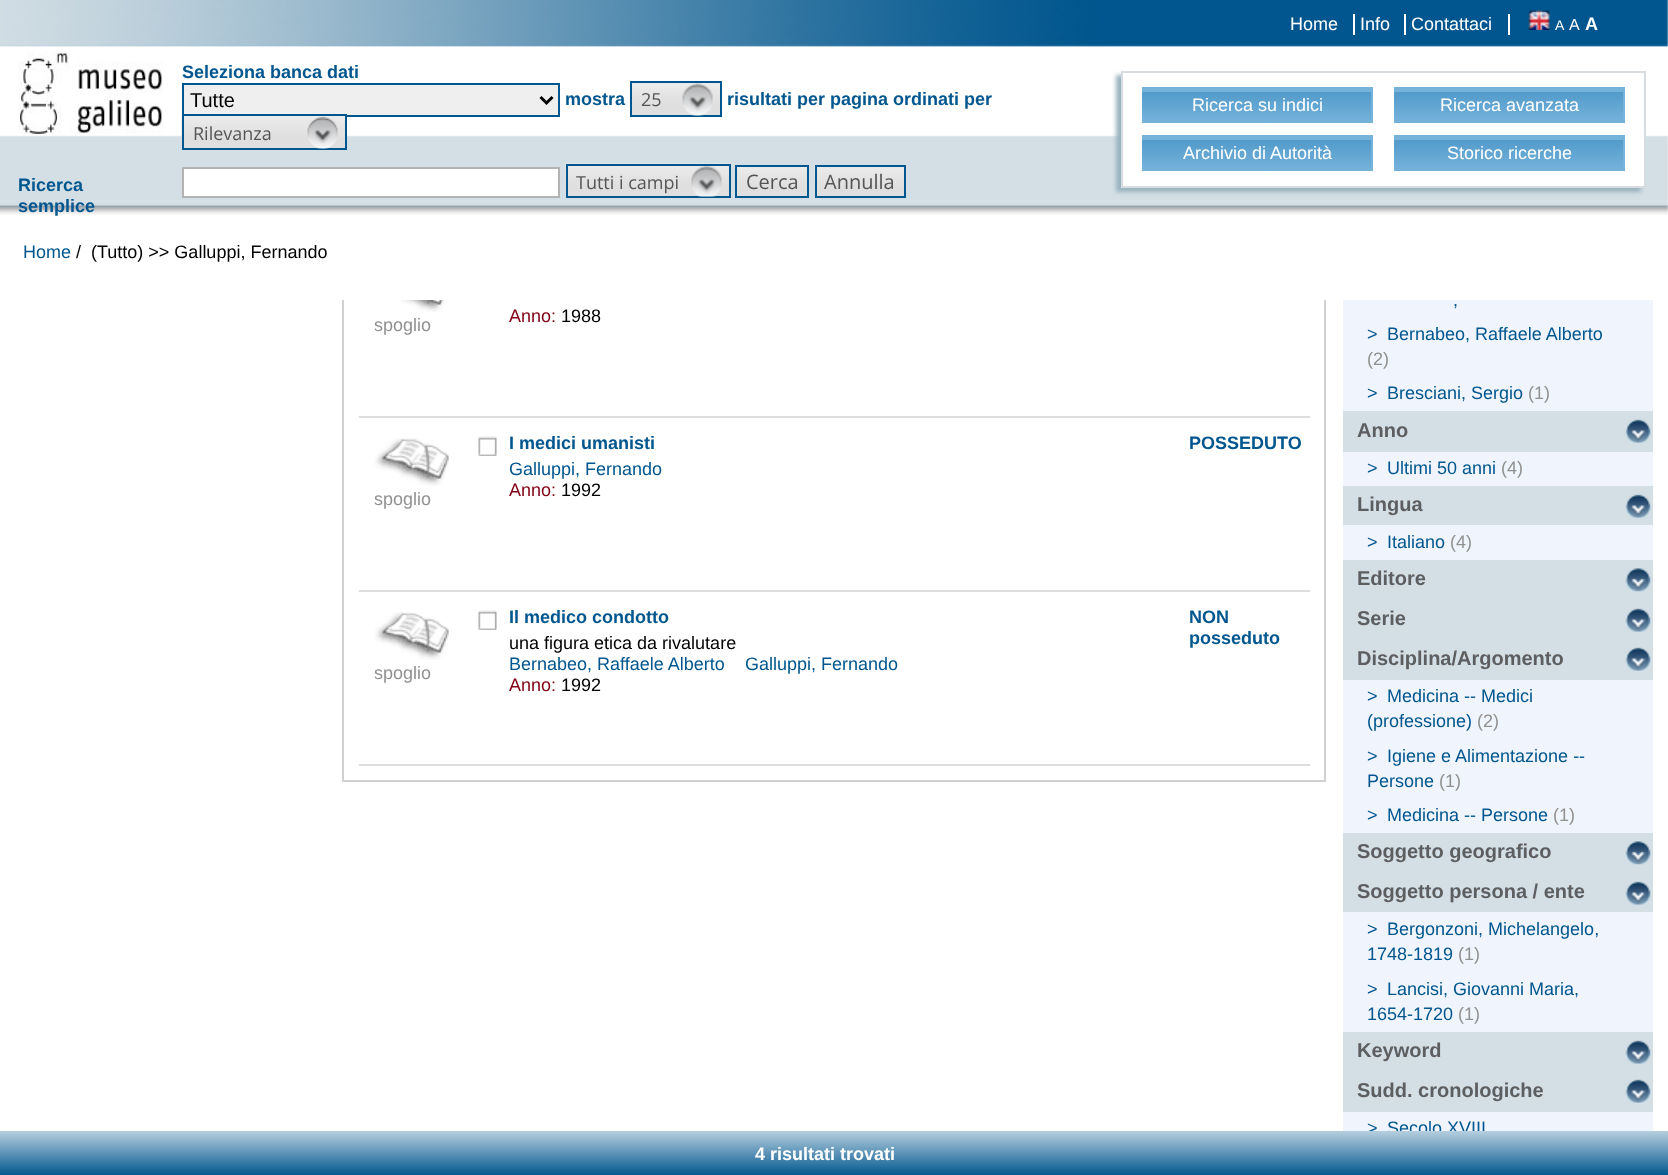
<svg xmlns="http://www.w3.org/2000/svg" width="1668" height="1175">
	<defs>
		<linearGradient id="g1" gradientUnits="userSpaceOnUse" x1="1257" y1="87" x2="1257" y2="123"><stop offset="0" stop-color="#4D97C8" /><stop offset="1" stop-color="#76B3DB" /></linearGradient>
		<clipPath id="clip1"><rect x="1142" y="87" width="231" height="36" /></clipPath>
		<linearGradient id="g2" gradientUnits="userSpaceOnUse" x1="1509" y1="87" x2="1509" y2="123"><stop offset="0" stop-color="#4D97C8" /><stop offset="1" stop-color="#76B3DB" /></linearGradient>
		<clipPath id="clip2"><rect x="1394" y="87" width="231" height="36" /></clipPath>
		<linearGradient id="g3" gradientUnits="userSpaceOnUse" x1="1257" y1="135" x2="1257" y2="171"><stop offset="0" stop-color="#4D97C8" /><stop offset="1" stop-color="#76B3DB" /></linearGradient>
		<clipPath id="clip3"><rect x="1142" y="135" width="231" height="36" /></clipPath>
		<linearGradient id="g4" gradientUnits="userSpaceOnUse" x1="1509" y1="135" x2="1509" y2="171"><stop offset="0" stop-color="#4D97C8" /><stop offset="1" stop-color="#76B3DB" /></linearGradient>
		<clipPath id="clip4"><rect x="1394" y="135" width="231" height="36" /></clipPath>
		<linearGradient id="g5" gradientUnits="userSpaceOnUse" x1="834" y1="1113" x2="834" y2="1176"><stop offset="0" stop-color="#FFFFFF" /><stop offset="1" stop-color="#00568E" /></linearGradient>
	</defs>
	<rect width="100%" height="100%" fill="#FFFFFF" />
	<rect x="343" y="-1" width="982" height="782" fill="none" stroke="#D1D1D2" stroke-width="2" />
	<rect x="342" y="0" width="984" height="300" fill="#FFFFFF" />
	<image x="0" y="0" width="1668" height="215" href="assets/img1.png" />
	<text x="1290" y="30" font-family="Liberation Sans" font-size="18" fill="#FFFFFF">Home</text>
	<rect x="1353" y="14" width="2" height="21" fill="#FFFFFF" />
	<text x="1360" y="30" font-family="Liberation Sans" font-size="18" fill="#FFFFFF">Info</text>
	<rect x="1404" y="14" width="2" height="21" fill="#FFFFFF" />
	<text x="1411" y="30" font-family="Liberation Sans" font-size="18" fill="#FFFFFF">Contattaci</text>
	<rect x="1508" y="14" width="2" height="21" fill="#FFFFFF" />
	<image x="1528" y="10" width="22" height="20" href="assets/img2.png" />
	<text x="1555" y="30" font-family="Liberation Sans" font-size="14" fill="#FFFFFF">A</text>
	<text x="1569" y="30" font-family="Liberation Sans" font-size="16" fill="#FFFFFF">A</text>
	<text x="1585" y="30" font-family="Liberation Sans" font-size="18" font-weight="700" fill="#FFFFFF">A</text>
	<image x="18" y="51" width="146" height="83" href="assets/img3.png" />
	<text x="182" y="78" font-family="Liberation Sans" font-size="18" font-weight="700" fill="#00568E">Seleziona banca dati</text>
	<rect x="183" y="84" width="376" height="32" fill="#EFEFEF" stroke="#00568E" stroke-width="2" />
	<path d="M540.5 97L546.5 103L552.5 97" fill="none" stroke="#000000" stroke-width="3" />
	<text x="190" y="107" font-family="Liberation Sans" font-size="20" fill="#000000">Tutte</text>
	<text x="565" y="105" font-family="Liberation Sans" font-size="18" font-weight="700" fill="#00568E">mostra</text>
	<image x="632" y="83" width="88" height="32" href="assets/img4.png" />
	<rect x="631" y="82" width="90" height="34" fill="none" stroke="#00568E" stroke-width="2" />
	<text x="641" y="106" font-family="Open Sans" font-size="18" fill="#555555">25</text>
	<image x="682" y="83" width="31" height="33" href="assets/img5.png" />
	<text x="727" y="105" font-family="Liberation Sans" font-size="18" font-weight="700" fill="#00568E">risultati per pagina ordinati per</text>
	<image x="181" y="114" width="164" height="36" href="assets/img6.png" />
	<rect x="183" y="115" width="163" height="34" fill="none" stroke="#00568E" stroke-width="2" />
	<text x="193" y="140" font-family="Open Sans" font-size="18" fill="#555555">Rilevanza</text>
	<image x="307" y="117" width="31" height="32" href="assets/img7.png" />
	<g font-family="Liberation Sans" font-size="18" font-weight="700" fill="#00568E">
		<text x="18" y="191">Ricerca</text>
		<text x="18" y="212">semplice</text>
	</g>
	<rect x="183" y="168" width="376" height="29" fill="#FFFFFF" stroke="#B3B3B3" stroke-width="2" />
	<image x="565" y="163" width="166" height="35" href="assets/img8.png" />
	<rect x="567" y="165" width="163" height="32" fill="none" stroke="#00568E" stroke-width="2" />
	<text x="576" y="189" font-family="Open Sans" font-size="18" fill="#555555">Tutti i campi</text>
	<image x="691" y="166" width="31" height="31" href="assets/img9.png" />
	<image x="737" y="167" width="70" height="29" href="assets/img10.png" />
	<rect x="736" y="166" width="72" height="31" fill="none" stroke="#00568E" stroke-width="2" />
	<text x="746" y="189" font-family="Open Sans" font-size="20" fill="#555555">Cerca</text>
	<image x="814" y="165" width="90" height="33" href="assets/img11.png" />
	<rect x="816" y="166" width="89" height="31" fill="none" stroke="#00568E" stroke-width="2" />
	<text x="824" y="189" font-family="Open Sans" font-size="20" fill="#555555">Annulla</text>
	<rect x="1116" y="75" width="525" height="117" fill="#99B2BF" filter="blur(2px)" />
	<rect x="1122" y="72" width="523" height="115" fill="#FFFFFF" stroke="#D6DCE0" stroke-width="2" />
	<rect x="1142" y="92" width="229" height="31" fill="url(#g1)" />
	<g clip-path="url(#clip1)">
		<path d="M993-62H1521V272H993ZM1140 92H1371V128H1140Z" fill="#76B3DB" fill-rule="evenodd" />
	</g>
	<text x="1192" y="111" font-family="Liberation Sans" font-size="18" fill="#FFFFFF">Ricerca su indici</text>
	<rect x="1394" y="92" width="229" height="31" fill="url(#g2)" />
	<g clip-path="url(#clip2)">
		<path d="M1245-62H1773V272H1245ZM1392 92H1623V128H1392Z" fill="#76B3DB" fill-rule="evenodd" />
	</g>
	<text x="1440" y="111" font-family="Liberation Sans" font-size="18" fill="#FFFFFF">Ricerca avanzata</text>
	<rect x="1142" y="140" width="229" height="31" fill="url(#g3)" />
	<g clip-path="url(#clip3)">
		<path d="M993-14H1521V320H993ZM1140 140H1371V176H1140Z" fill="#76B3DB" fill-rule="evenodd" />
	</g>
	<text x="1183" y="159" font-family="Liberation Sans" font-size="18" fill="#FFFFFF">Archivio di Autorità</text>
	<rect x="1394" y="140" width="229" height="31" fill="url(#g4)" />
	<g clip-path="url(#clip4)">
		<path d="M1245-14H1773V320H1245ZM1392 140H1623V176H1392Z" fill="#76B3DB" fill-rule="evenodd" />
	</g>
	<text x="1447" y="159" font-family="Liberation Sans" font-size="18" fill="#FFFFFF">Storico ricerche</text>
	<text x="23" y="258" font-family="Liberation Sans" font-size="18" fill="#00568E">Home</text>
	<g font-family="Liberation Sans" font-size="18" fill="#000000">
		<text x="76" y="258">/</text>
		<text x="91" y="258">(Tutto) &gt;&gt; Galluppi, Fernando</text>
	</g>
	<rect x="359" y="416" width="951" height="2" fill="#DDDDDD" />
	<image x="374" y="300" width="75" height="12" href="assets/img12.png" />
	<text x="374" y="331" font-family="Liberation Sans" font-size="18" fill="#929191">spoglio</text>
	<text x="509" y="322" font-family="Liberation Sans" font-size="18" fill="#830014">Anno:</text>
	<text x="561" y="322" font-family="Liberation Sans" font-size="18" fill="#000000">1988</text>
	<rect x="359" y="590" width="951" height="2" fill="#DDDDDD" />
	<image x="478" y="436" width="19" height="20" href="assets/img13.png" />
	<text x="509" y="449" font-family="Liberation Sans" font-size="18" font-weight="700" fill="#00568E">I medici umanisti</text>
	<text x="509" y="475" font-family="Liberation Sans" font-size="18" fill="#00568E">Galluppi, Fernando</text>
	<text x="509" y="496" font-family="Liberation Sans" font-size="18" fill="#830014">Anno:</text>
	<text x="561" y="496" font-family="Liberation Sans" font-size="18" fill="#000000">1992</text>
	<text x="1189" y="449" font-family="Liberation Sans" font-size="18" font-weight="700" fill="#00568E">POSSEDUTO</text>
	<image x="374" y="438" width="75" height="48" href="assets/img14.png" />
	<text x="374" y="505" font-family="Liberation Sans" font-size="18" fill="#929191">spoglio</text>
	<rect x="359" y="764" width="951" height="2" fill="#DDDDDD" />
	<image x="478" y="610" width="19" height="20" href="assets/img13.png" />
	<text x="509" y="623" font-family="Liberation Sans" font-size="18" font-weight="700" fill="#00568E">Il medico condotto</text>
	<text x="509" y="649" font-family="Liberation Sans" font-size="18" fill="#000000">una figura etica da rivalutare</text>
	<g font-family="Liberation Sans" font-size="18" fill="#00568E">
		<text x="509" y="670">Bernabeo, Raffaele Alberto</text>
		<text x="745" y="670">Galluppi, Fernando</text>
	</g>
	<text x="509" y="691" font-family="Liberation Sans" font-size="18" fill="#830014">Anno:</text>
	<text x="561" y="691" font-family="Liberation Sans" font-size="18" fill="#000000">1992</text>
	<g font-family="Liberation Sans" font-size="18" font-weight="700" fill="#00568E">
		<text x="1189" y="623">NON</text>
		<text x="1189" y="644">posseduto</text>
	</g>
	<image x="374" y="612" width="75" height="48" href="assets/img14.png" />
	<text x="374" y="679" font-family="Liberation Sans" font-size="18" fill="#929191">spoglio</text>
	<rect x="1343" y="1112" width="310" height="19" fill="#F0F5FD" />
	<g font-family="Liberation Sans" font-size="18" fill="#00568E">
		<text x="1367" y="1134">&gt;</text>
		<text x="1387" y="1134">Secolo XVIII</text>
	</g>
	<rect x="0" y="1131" width="1668" height="44" fill="url(#g5)" />
	<text x="755" y="1160" font-family="Liberation Sans" font-size="18" font-weight="700" fill="#FFFFFF">4 risultati trovati</text>
	<rect x="1343" y="300" width="310" height="111" fill="#F0F5FD" />
	<g font-family="Liberation Sans" font-size="18" fill="#00568E">
		<text x="1453" y="306">,</text>
		<text x="1367" y="340">&gt;</text>
		<text x="1387" y="340">Bernabeo, Raffaele Alberto</text>
	</g>
	<text x="1367" y="365" font-family="Liberation Sans" font-size="18" fill="#929191">(2)</text>
	<g font-family="Liberation Sans" font-size="18" fill="#00568E">
		<text x="1367" y="399">&gt;</text>
		<text x="1387" y="399">Bresciani, Sergio</text>
	</g>
	<text x="1528" y="399" font-family="Liberation Sans" font-size="18" fill="#929191">(1)</text>
	<rect x="1343" y="452" width="310" height="34" fill="#F0F5FD" />
	<rect x="1343" y="411" width="310" height="41" fill="#D4DFE5" />
	<image x="1625" y="419" width="26" height="25" href="assets/img15.png" />
	<text x="1357" y="437" font-family="Liberation Sans" font-size="20" font-weight="700" fill="#5D5E5F">Anno</text>
	<g font-family="Liberation Sans" font-size="18" fill="#00568E">
		<text x="1367" y="474">&gt;</text>
		<text x="1387" y="474">Ultimi 50 anni</text>
	</g>
	<text x="1501" y="474" font-family="Liberation Sans" font-size="18" fill="#929191">(4)</text>
	<rect x="1343" y="525" width="310" height="35" fill="#F0F5FD" />
	<rect x="1343" y="486" width="310" height="39" fill="#D4DFE5" />
	<image x="1625" y="494" width="26" height="25" href="assets/img15.png" />
	<text x="1357" y="511" font-family="Liberation Sans" font-size="20" font-weight="700" fill="#5D5E5F">Lingua</text>
	<g font-family="Liberation Sans" font-size="18" fill="#00568E">
		<text x="1367" y="548">&gt;</text>
		<text x="1387" y="548">Italiano</text>
	</g>
	<text x="1450" y="548" font-family="Liberation Sans" font-size="18" fill="#929191">(4)</text>
	<rect x="1343" y="560" width="310" height="120" fill="#D4DFE5" />
	<image x="1625" y="568" width="26" height="24" href="assets/img16.png" />
	<text x="1357" y="585" font-family="Liberation Sans" font-size="20" font-weight="700" fill="#5D5E5F">Editore</text>
	<image x="1625" y="608" width="26" height="25" href="assets/img15.png" />
	<text x="1357" y="625" font-family="Liberation Sans" font-size="20" font-weight="700" fill="#5D5E5F">Serie</text>
	<rect x="1343" y="680" width="310" height="153" fill="#F0F5FD" />
	<image x="1625" y="647" width="26" height="25" href="assets/img15.png" />
	<text x="1357" y="665" font-family="Liberation Sans" font-size="20" font-weight="700" fill="#5D5E5F">Disciplina/Argomento</text>
	<g font-family="Liberation Sans" font-size="18" fill="#00568E">
		<text x="1367" y="702">&gt;</text>
		<text x="1387" y="702">Medicina -- Medici</text>
		<text x="1367" y="727">(professione)</text>
	</g>
	<text x="1477" y="727" font-family="Liberation Sans" font-size="18" fill="#929191">(2)</text>
	<g font-family="Liberation Sans" font-size="18" fill="#00568E">
		<text x="1367" y="762">&gt;</text>
		<text x="1387" y="762">Igiene e Alimentazione --</text>
		<text x="1367" y="787">Persone</text>
	</g>
	<text x="1439" y="787" font-family="Liberation Sans" font-size="18" fill="#929191">(1)</text>
	<g font-family="Liberation Sans" font-size="18" fill="#00568E">
		<text x="1367" y="821">&gt;</text>
		<text x="1387" y="821">Medicina -- Persone</text>
	</g>
	<text x="1553" y="821" font-family="Liberation Sans" font-size="18" fill="#929191">(1)</text>
	<rect x="1343" y="833" width="310" height="79" fill="#D4DFE5" />
	<image x="1625" y="841" width="26" height="24" href="assets/img16.png" />
	<text x="1357" y="858" font-family="Liberation Sans" font-size="20" font-weight="700" fill="#5D5E5F">Soggetto geografico</text>
	<rect x="1343" y="912" width="310" height="120" fill="#F0F5FD" />
	<image x="1625" y="881" width="26" height="25" href="assets/img15.png" />
	<text x="1357" y="898" font-family="Liberation Sans" font-size="20" font-weight="700" fill="#5D5E5F">Soggetto persona / ente</text>
	<g font-family="Liberation Sans" font-size="18" fill="#00568E">
		<text x="1367" y="935">&gt;</text>
		<text x="1387" y="935">Bergonzoni, Michelangelo,</text>
		<text x="1367" y="960">1748-1819</text>
	</g>
	<text x="1458" y="960" font-family="Liberation Sans" font-size="18" fill="#929191">(1)</text>
	<g font-family="Liberation Sans" font-size="18" fill="#00568E">
		<text x="1367" y="995">&gt;</text>
		<text x="1387" y="995">Lancisi, Giovanni Maria,</text>
		<text x="1367" y="1020">1654-1720</text>
	</g>
	<text x="1458" y="1020" font-family="Liberation Sans" font-size="18" fill="#929191">(1)</text>
	<rect x="1343" y="1032" width="310" height="80" fill="#D4DFE5" />
	<image x="1625" y="1040" width="26" height="25" href="assets/img15.png" />
	<text x="1357" y="1057" font-family="Liberation Sans" font-size="20" font-weight="700" fill="#5D5E5F">Keyword</text>
	<image x="1625" y="1079" width="26" height="25" href="assets/img15.png" />
	<text x="1357" y="1097" font-family="Liberation Sans" font-size="20" font-weight="700" fill="#5D5E5F">Sudd. cronologiche</text>
</svg>
